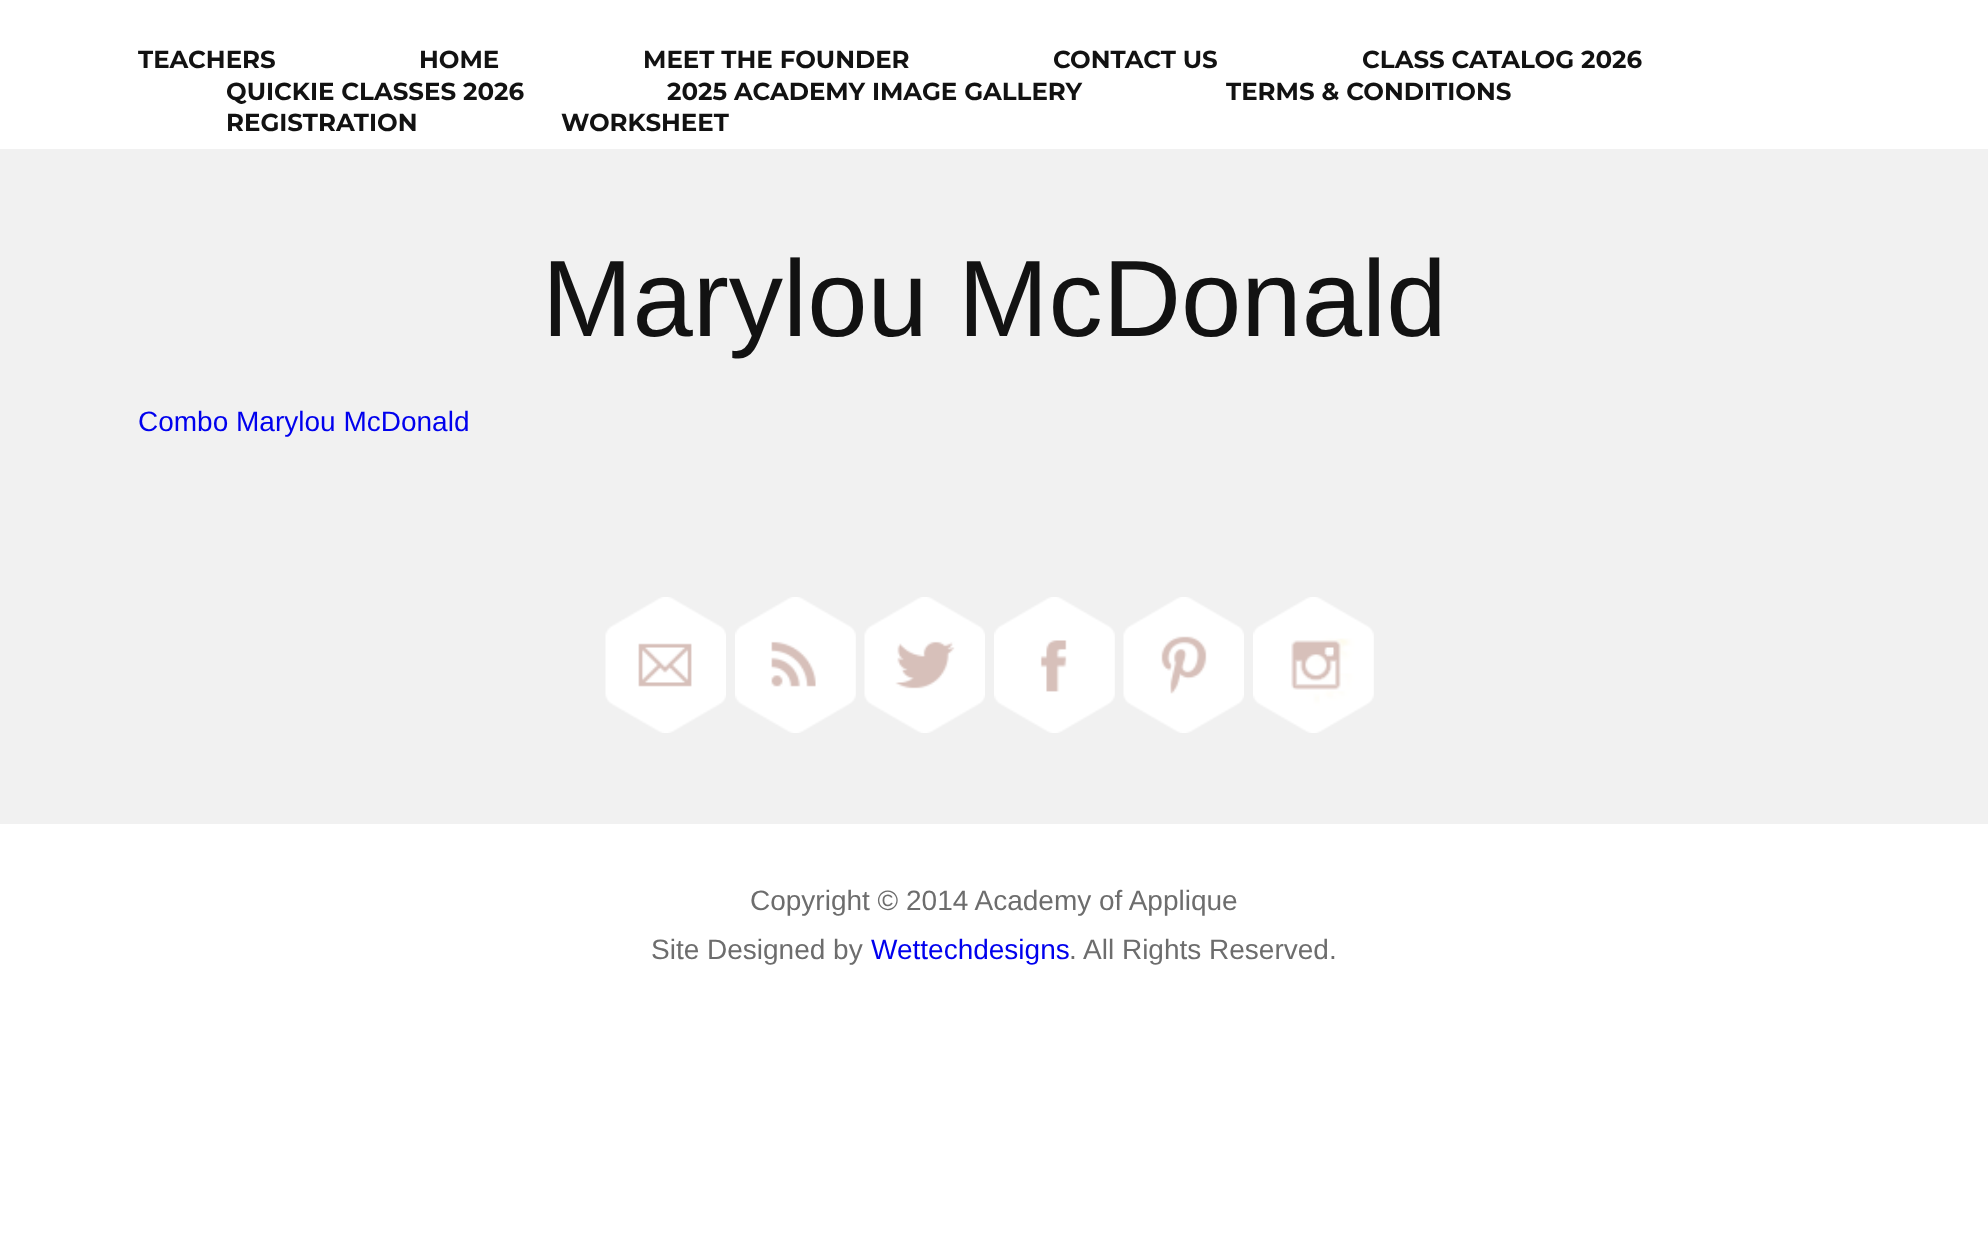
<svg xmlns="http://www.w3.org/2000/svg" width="1988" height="1246">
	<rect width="100%" height="100%" fill="#FFFFFF" />
	<g font-family="Montserrat" font-size="24.5" font-weight="700" fill="#121212">
		<text x="138" y="68">TEACHERS</text>
		<text x="419" y="68">HOME</text>
		<text x="643" y="68">MEET THE FOUNDER</text>
		<text x="1053" y="68">CONTACT US</text>
		<text x="1362" y="68">CLASS CATALOG 2026</text>
		<text x="226" y="100">QUICKIE CLASSES 2026</text>
		<text x="667" y="100">2025 ACADEMY IMAGE GALLERY</text>
		<text x="1226" y="100">TERMS &amp; CONDITIONS</text>
		<text x="226" y="131">REGISTRATION</text>
		<text x="561" y="131">WORKSHEET</text>
	</g>
	<rect x="0" y="149" width="1988" height="675" fill="#F1F1F1" />
	<text x="542" y="336" font-family="Liberation Sans" font-size="108.5" fill="#121212">Marylou McDonald</text>
	<text x="138" y="431" font-family="Liberation Sans" font-size="28" fill="#0000EE">Combo Marylou McDonald</text>
	<image x="605" y="597" width="121" height="136" href="assets/img1.png" />
	<image x="735" y="597" width="121" height="136" href="assets/img2.png" />
	<image x="864" y="597" width="121" height="136" href="assets/img3.png" />
	<image x="994" y="597" width="121" height="136" href="assets/img4.png" />
	<image x="1123" y="597" width="121" height="136" href="assets/img5.png" />
	<image x="1253" y="597" width="121" height="136" href="assets/img6.png" />
	<g font-family="Liberation Sans" font-size="28" fill="#6D6D6D">
		<text x="750" y="910">Copyright © 2014 Academy of Applique</text>
		<text x="651" y="959">Site Designed by</text>
	</g>
	<text x="871" y="959" font-family="Liberation Sans" font-size="28" fill="#0000EE">Wettechdesigns</text>
	<text x="1069" y="959" font-family="Liberation Sans" font-size="28" fill="#6D6D6D">. All Rights Reserved.</text>
</svg>
